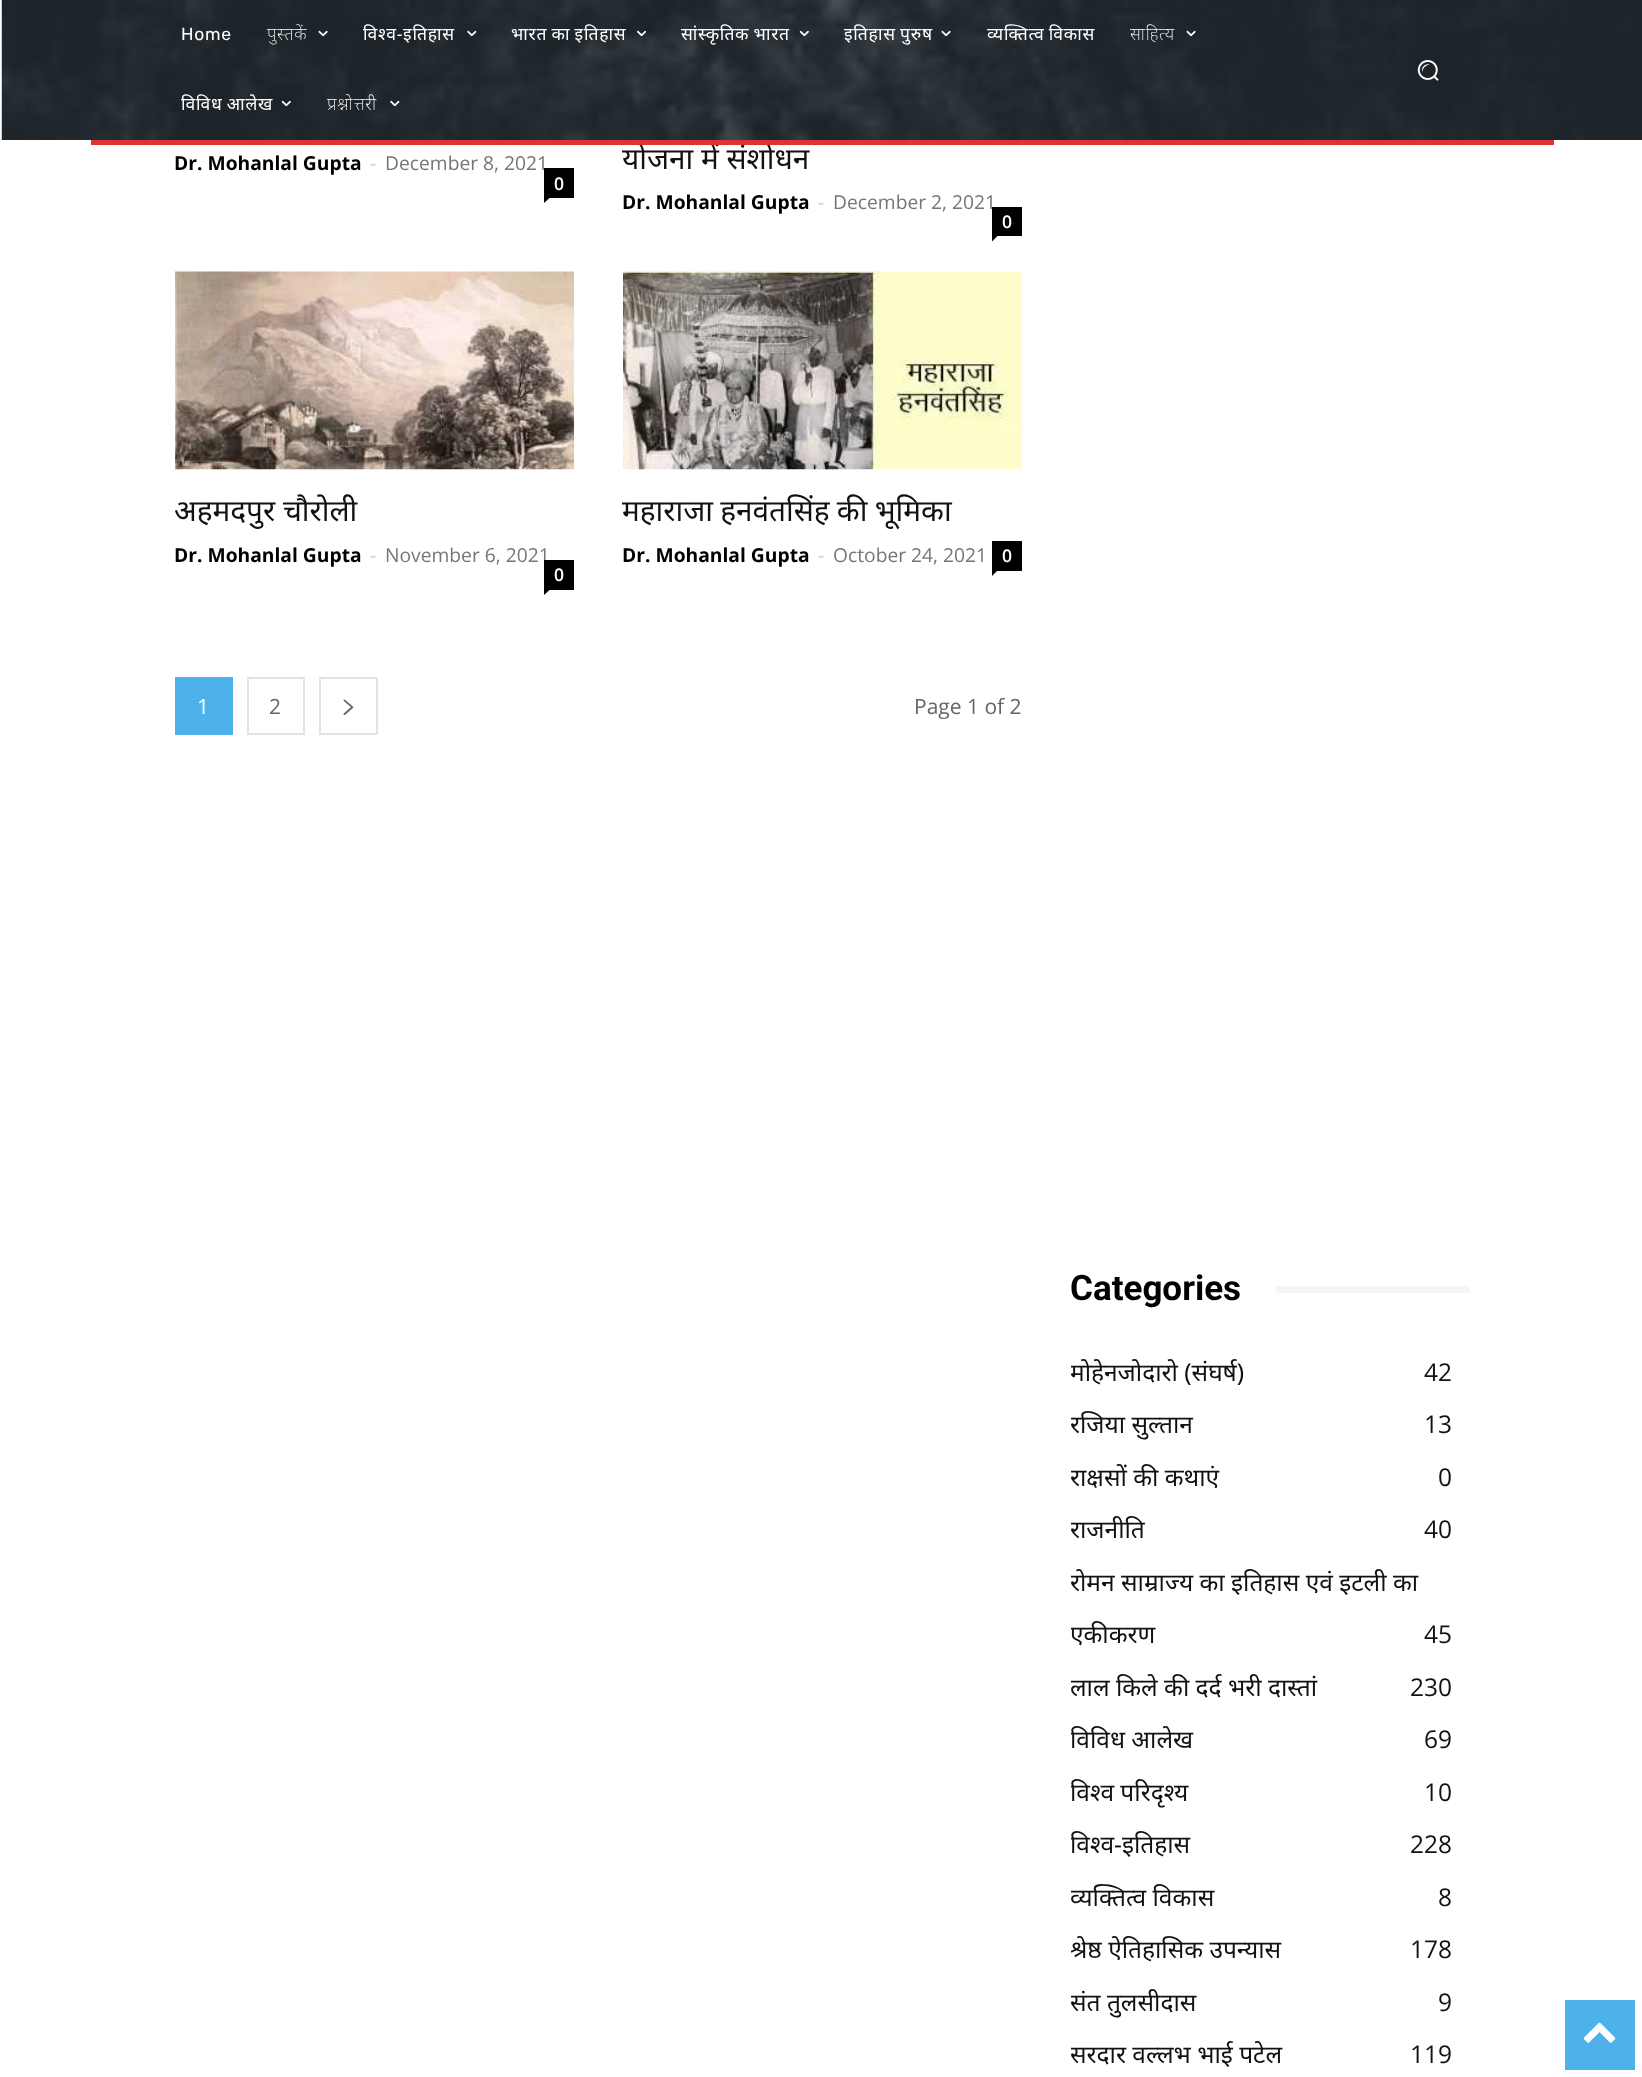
<svg xmlns="http://www.w3.org/2000/svg" width="1642" height="2077">
	<defs>
		<clipPath id="clip1"><rect x="1071" y="1264" width="399" height="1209" /></clipPath>
	</defs>
	<rect width="100%" height="100%" fill="#FFFFFF" />
	<rect x="2" y="0" width="1640" height="140" fill="#232D35" />
	<image x="1" y="0" width="1641" height="140" href="assets/img1.png" />
	<text x="181" y="40" font-family="Rubik" font-size="17.5" letter-spacing="0.75" fill="#FFFFFF">Home</text>
	<text x="267" y="40" font-family="Noto Sans" font-size="17.5" font-weight="200" letter-spacing="0.75" fill="#FFFFFF">पुस्तकें</text>
	<image x="318" y="30" width="10" height="7" href="assets/img2.png" />
	<text x="363" y="40" font-family="Noto Sans" font-size="17.5" letter-spacing="0.75" fill="#FFFFFF">विश्व-इतिहास</text>
	<image x="467" y="30" width="10" height="7" href="assets/img3.png" />
	<text x="511" y="40" word-spacing="-1" font-family="Noto Sans" font-size="17.5" letter-spacing="0.75" fill="#FFFFFF">भारत का इतिहास</text>
	<image x="637" y="30" width="10" height="7" href="assets/img4.png" />
	<text x="681" y="40" word-spacing="-1" font-family="Noto Sans" font-size="17.5" letter-spacing="0.75" fill="#FFFFFF">सांस्कृतिक भारत</text>
	<image x="799" y="30" width="10" height="7" href="assets/img5.png" />
	<text x="844" y="40" word-spacing="-1" font-family="Noto Sans" font-size="17.5" letter-spacing="0.75" fill="#FFFFFF">इतिहास पुरुष</text>
	<image x="941" y="30" width="10" height="7" href="assets/img6.png" />
	<text x="987" y="40" word-spacing="-1" font-family="Noto Sans" font-size="17.5" letter-spacing="0.75" fill="#FFFFFF">व्यक्तित्व विकास</text>
	<text x="1130" y="40" font-family="Noto Sans" font-size="17.5" font-weight="200" letter-spacing="0.75" fill="#FFFFFF">साहित्य</text>
	<image x="1186" y="30" width="10" height="7" href="assets/img7.png" />
	<text x="181" y="110" word-spacing="-1" font-family="Noto Sans" font-size="17.5" letter-spacing="0.75" fill="#FFFFFF">विविध आलेख</text>
	<image x="281" y="100" width="10" height="7" href="assets/img8.png" />
	<text x="327" y="110" font-family="Noto Sans" font-size="17.5" font-weight="200" letter-spacing="0.75" fill="#FFFFFF">प्रश्नोत्तरी</text>
	<image x="390" y="100" width="10" height="7" href="assets/img9.png" />
	<image x="1417" y="60" width="22" height="21" href="assets/img10.png" />
	<text x="622" y="169" font-family="Noto Sans" font-size="29.75" fill="#111111">योजना में संशोधन</text>
	<rect x="91" y="140" width="1463" height="5" fill="#DD3333" />
	<text x="174" y="170" font-family="Open Sans" font-size="19.25" font-weight="700" fill="#000000">Dr. Mohanlal Gupta</text>
	<text x="370" y="170" font-family="Open Sans" font-size="19.25" fill="#CCCCCC">-</text>
	<text x="385" y="170" font-family="Open Sans" font-size="19.25" fill="#767676">December 8, 2021</text>
	<rect x="544" y="168" width="30" height="30" fill="#000000" />
	<text x="554" y="190" font-family="Open Sans" font-size="17.5" font-weight="600" fill="#FFFFFF">0</text>
	<path d="M544 198H549.5L544 203Z" fill="#000000" />
	<text x="622" y="209" font-family="Open Sans" font-size="19.25" font-weight="700" fill="#000000">Dr. Mohanlal Gupta</text>
	<text x="818" y="209" font-family="Open Sans" font-size="19.25" fill="#CCCCCC">-</text>
	<text x="833" y="209" font-family="Open Sans" font-size="19.25" fill="#767676">December 2, 2021</text>
	<rect x="992" y="207" width="30" height="29" fill="#000000" />
	<text x="1002" y="228" font-family="Open Sans" font-size="17.5" font-weight="600" fill="#FFFFFF">0</text>
	<path d="M992 236H997.5L992 241.5Z" fill="#000000" />
	<image x="175" y="271" width="399" height="199" href="assets/img11.png" />
	<text x="174" y="521" font-family="Noto Sans" font-size="29.75" fill="#111111">अहमदपुर चौरोली</text>
	<text x="174" y="562" font-family="Open Sans" font-size="19.25" font-weight="700" fill="#000000">Dr. Mohanlal Gupta</text>
	<text x="370" y="562" font-family="Open Sans" font-size="19.25" fill="#CCCCCC">-</text>
	<text x="385" y="562" font-family="Open Sans" font-size="19.25" fill="#767676">November 6, 2021</text>
	<rect x="544" y="560" width="30" height="30" fill="#000000" />
	<text x="554" y="581" font-family="Open Sans" font-size="17.5" font-weight="600" fill="#FFFFFF">0</text>
	<path d="M544 590H549.5L544 595Z" fill="#000000" />
	<image x="623" y="271" width="399" height="199" href="assets/img12.png" />
	<text x="622" y="521" word-spacing="-0.5" font-family="Noto Sans" font-size="29.75" fill="#111111">महाराजा हनवंतसिंह की भूमिका</text>
	<text x="622" y="562" font-family="Open Sans" font-size="19.25" font-weight="700" fill="#000000">Dr. Mohanlal Gupta</text>
	<text x="818" y="562" font-family="Open Sans" font-size="19.25" fill="#CCCCCC">-</text>
	<text x="833" y="562" font-family="Open Sans" font-size="19.25" fill="#767676">October 24, 2021</text>
	<rect x="992" y="541" width="30" height="30" fill="#000000" />
	<text x="1002" y="562" font-family="Open Sans" font-size="17.5" font-weight="600" fill="#FFFFFF">0</text>
	<path d="M992 570.5H997.5L992 576Z" fill="#000000" />
	<rect x="175" y="677" width="58" height="58" fill="#4DB2EC" />
	<text x="197" y="714" font-family="Open Sans" font-size="21" fill="#FFFFFF">1</text>
	<rect x="248" y="678" width="56" height="56" fill="none" stroke="#E3E3E3" stroke-width="2" />
	<text x="269" y="714" font-family="Open Sans" font-size="21" fill="#666666">2</text>
	<rect x="320" y="678" width="57" height="56" fill="none" stroke="#E3E3E3" stroke-width="2" />
	<image x="343" y="699" width="11" height="17" href="assets/img13.png" />
	<text x="914" y="714" font-family="Open Sans" font-size="21" fill="#666666">Page 1 of 2</text>
	<text x="1070" y="1300" font-family="Roboto" font-size="35" font-weight="700" fill="#000000">Categories</text>
	<rect x="1276" y="1286" width="194" height="7" fill="#F5F5F5" />
	<g clip-path="url(#clip1)">
		<text x="1070" y="1381" font-family="Noto Sans" font-size="24.5" fill="#111111">मोहेनजोदारो (संघर्ष)</text>
	</g>
	<text x="1424" y="1381" font-family="Open Sans" font-size="24.5" fill="#111111">42</text>
	<g clip-path="url(#clip1)">
		<text x="1070" y="1433" font-family="Noto Sans" font-size="24.5" fill="#111111">रजिया सुल्तान</text>
	</g>
	<text x="1424" y="1433" font-family="Open Sans" font-size="24.5" fill="#111111">13</text>
	<g clip-path="url(#clip1)">
		<text x="1070" y="1486" font-family="Noto Sans" font-size="24.5" fill="#111111">राक्षसों की कथाएं</text>
	</g>
	<text x="1438" y="1486" font-family="Open Sans" font-size="24.5" fill="#111111">0</text>
	<g clip-path="url(#clip1)">
		<text x="1070" y="1538" font-family="Noto Sans" font-size="24.5" fill="#111111">राजनीति</text>
	</g>
	<text x="1424" y="1538" font-family="Open Sans" font-size="24.5" fill="#111111">40</text>
	<g clip-path="url(#clip1)">
		<g font-family="Noto Sans" font-size="24.5" fill="#111111">
			<text x="1070" y="1591">रोमन साम्राज्य का इतिहास एवं इटली का</text>
			<text x="1070" y="1643">एकीकरण</text>
		</g>
	</g>
	<text x="1424" y="1643" font-family="Open Sans" font-size="24.5" fill="#111111">45</text>
	<g clip-path="url(#clip1)">
		<text x="1070" y="1696" font-family="Noto Sans" font-size="24.5" fill="#111111">लाल किले की दर्द भरी दास्तां</text>
	</g>
	<text x="1410" y="1696" font-family="Open Sans" font-size="24.5" fill="#111111">230</text>
	<g clip-path="url(#clip1)">
		<text x="1070" y="1748" font-family="Noto Sans" font-size="24.5" fill="#111111">विविध आलेख</text>
	</g>
	<text x="1424" y="1748" font-family="Open Sans" font-size="24.5" fill="#111111">69</text>
	<g clip-path="url(#clip1)">
		<text x="1070" y="1801" font-family="Noto Sans" font-size="24.5" fill="#111111">विश्व परिदृश्य</text>
	</g>
	<text x="1424" y="1801" font-family="Open Sans" font-size="24.5" fill="#111111">10</text>
	<g clip-path="url(#clip1)">
		<text x="1070" y="1853" font-family="Noto Sans" font-size="24.5" fill="#111111">विश्व-इतिहास</text>
	</g>
	<text x="1410" y="1853" font-family="Open Sans" font-size="24.5" fill="#111111">228</text>
	<g clip-path="url(#clip1)">
		<text x="1070" y="1906" font-family="Noto Sans" font-size="24.5" fill="#111111">व्यक्तित्व विकास</text>
	</g>
	<text x="1438" y="1906" font-family="Open Sans" font-size="24.5" fill="#111111">8</text>
	<g clip-path="url(#clip1)">
		<text x="1070" y="1958" font-family="Noto Sans" font-size="24.5" fill="#111111">श्रेष्ठ ऐतिहासिक उपन्यास</text>
	</g>
	<text x="1410" y="1958" font-family="Open Sans" font-size="24.5" fill="#111111">178</text>
	<g clip-path="url(#clip1)">
		<text x="1070" y="2011" font-family="Noto Sans" font-size="24.5" fill="#111111">संत तुलसीदास</text>
	</g>
	<text x="1438" y="2011" font-family="Open Sans" font-size="24.5" fill="#111111">9</text>
	<g clip-path="url(#clip1)">
		<text x="1070" y="2063" font-family="Noto Sans" font-size="24.5" fill="#111111">सरदार वल्लभ भाई पटेल</text>
	</g>
	<text x="1410" y="2063" font-family="Open Sans" font-size="24.5" fill="#111111">119</text>
	<rect x="1565" y="2000" width="70" height="70" fill="#4DB2EC" />
	<image x="1583" y="2022" width="33" height="21" href="assets/img14.png" />
</svg>
